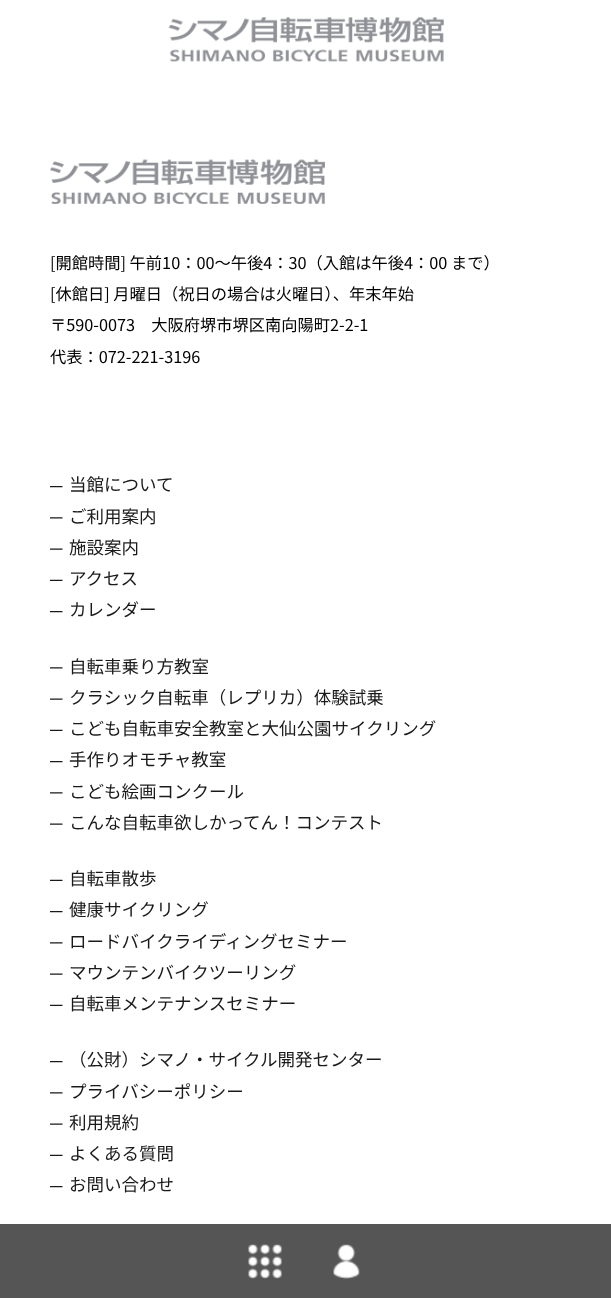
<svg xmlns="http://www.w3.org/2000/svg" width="611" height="1298">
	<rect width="100%" height="100%" fill="#FFFFFF" />
	<image x="168" y="17" width="276" height="45" href="assets/img1.png" />
	<image x="50" y="159" width="275" height="45" href="assets/img2.png" />
	<g font-family="Noto Sans JP" font-size="16.25" fill="#000000">
		<text x="50" y="269">[開館時間] 午前10：00～午後4：30（入館は午後4：00 まで）</text>
		<text x="50" y="300">[休館日] 月曜日（祝日の場合は火曜日）、年末年始</text>
		<text x="50" y="331">〒590-0073　大阪府堺市堺区南向陽町2-2-1</text>
		<text x="50" y="363">代表：072-221-3196</text>
	</g>
	<image x="50" y="486" width="13" height="2" href="assets/img3.png" />
	<text x="69" y="491" font-family="Noto Sans JP" font-size="17.5" fill="#1A1A1A">当館について</text>
	<image x="50" y="517" width="13" height="2" href="assets/img4.png" />
	<text x="69" y="523" font-family="Noto Sans JP" font-size="17.5" fill="#1A1A1A">ご利用案内</text>
	<image x="50" y="548" width="13" height="2" href="assets/img5.png" />
	<text x="69" y="554" font-family="Noto Sans JP" font-size="17.5" fill="#1A1A1A">施設案内</text>
	<image x="50" y="579" width="13" height="2" href="assets/img6.png" />
	<text x="69" y="585" font-family="Noto Sans JP" font-size="17.5" fill="#1A1A1A">アクセス</text>
	<image x="50" y="611" width="13" height="2" href="assets/img3.png" />
	<text x="69" y="616" font-family="Noto Sans JP" font-size="17.5" fill="#1A1A1A">カレンダー</text>
	<image x="50" y="667" width="13" height="2" href="assets/img4.png" />
	<text x="69" y="673" font-family="Noto Sans JP" font-size="17.5" fill="#1A1A1A">自転車乗り方教室</text>
	<image x="50" y="698" width="13" height="2" href="assets/img5.png" />
	<text x="69" y="704" font-family="Noto Sans JP" font-size="17.5" fill="#1A1A1A">クラシック自転車（レプリカ）体験試乗</text>
	<image x="50" y="729" width="13" height="2" href="assets/img6.png" />
	<text x="69" y="735" font-family="Noto Sans JP" font-size="17.5" fill="#1A1A1A">こども自転車安全教室と大仙公園サイクリング</text>
	<image x="50" y="761" width="13" height="2" href="assets/img3.png" />
	<text x="69" y="766" font-family="Noto Sans JP" font-size="17.5" fill="#1A1A1A">手作りオモチャ教室</text>
	<image x="50" y="792" width="13" height="2" href="assets/img4.png" />
	<text x="69" y="798" font-family="Noto Sans JP" font-size="17.5" fill="#1A1A1A">こども絵画コンクール</text>
	<image x="50" y="823" width="13" height="2" href="assets/img5.png" />
	<text x="69" y="829" font-family="Noto Sans JP" font-size="17.5" fill="#1A1A1A">こんな自転車欲しかってん！コンテスト</text>
	<image x="50" y="879" width="13" height="2" href="assets/img6.png" />
	<text x="69" y="885" font-family="Noto Sans JP" font-size="17.5" fill="#1A1A1A">自転車散歩</text>
	<image x="50" y="911" width="13" height="2" href="assets/img3.png" />
	<text x="69" y="916" font-family="Noto Sans JP" font-size="17.5" fill="#1A1A1A">健康サイクリング</text>
	<image x="50" y="942" width="13" height="2" href="assets/img4.png" />
	<text x="69" y="948" font-family="Noto Sans JP" font-size="17.5" fill="#1A1A1A">ロードバイクライディングセミナー</text>
	<image x="50" y="973" width="13" height="2" href="assets/img5.png" />
	<text x="69" y="979" font-family="Noto Sans JP" font-size="17.5" fill="#1A1A1A">マウンテンバイクツーリング</text>
	<image x="50" y="1004" width="13" height="2" href="assets/img6.png" />
	<text x="69" y="1010" font-family="Noto Sans JP" font-size="17.5" fill="#1A1A1A">自転車メンテナンスセミナー</text>
	<image x="50" y="1061" width="13" height="2" href="assets/img3.png" />
	<text x="69" y="1066" font-family="Noto Sans JP" font-size="17.5" fill="#1A1A1A">（公財）シマノ・サイクル開発センター</text>
	<image x="50" y="1092" width="13" height="2" href="assets/img4.png" />
	<text x="69" y="1098" font-family="Noto Sans JP" font-size="17.5" fill="#1A1A1A">プライバシーポリシー</text>
	<image x="50" y="1123" width="13" height="2" href="assets/img5.png" />
	<text x="69" y="1129" font-family="Noto Sans JP" font-size="17.5" fill="#1A1A1A">利用規約</text>
	<image x="50" y="1154" width="13" height="2" href="assets/img6.png" />
	<text x="69" y="1160" font-family="Noto Sans JP" font-size="17.5" fill="#1A1A1A">よくある質問</text>
	<image x="50" y="1186" width="13" height="2" href="assets/img3.png" />
	<text x="69" y="1191" font-family="Noto Sans JP" font-size="17.5" fill="#1A1A1A">お問い合わせ</text>
	<rect x="0" y="1224" width="611" height="74" fill="#555555" />
	<image x="248" y="1244" width="34" height="35" href="assets/img7.png" />
	<image x="333" y="1244" width="27" height="35" href="assets/img8.png" />
</svg>
